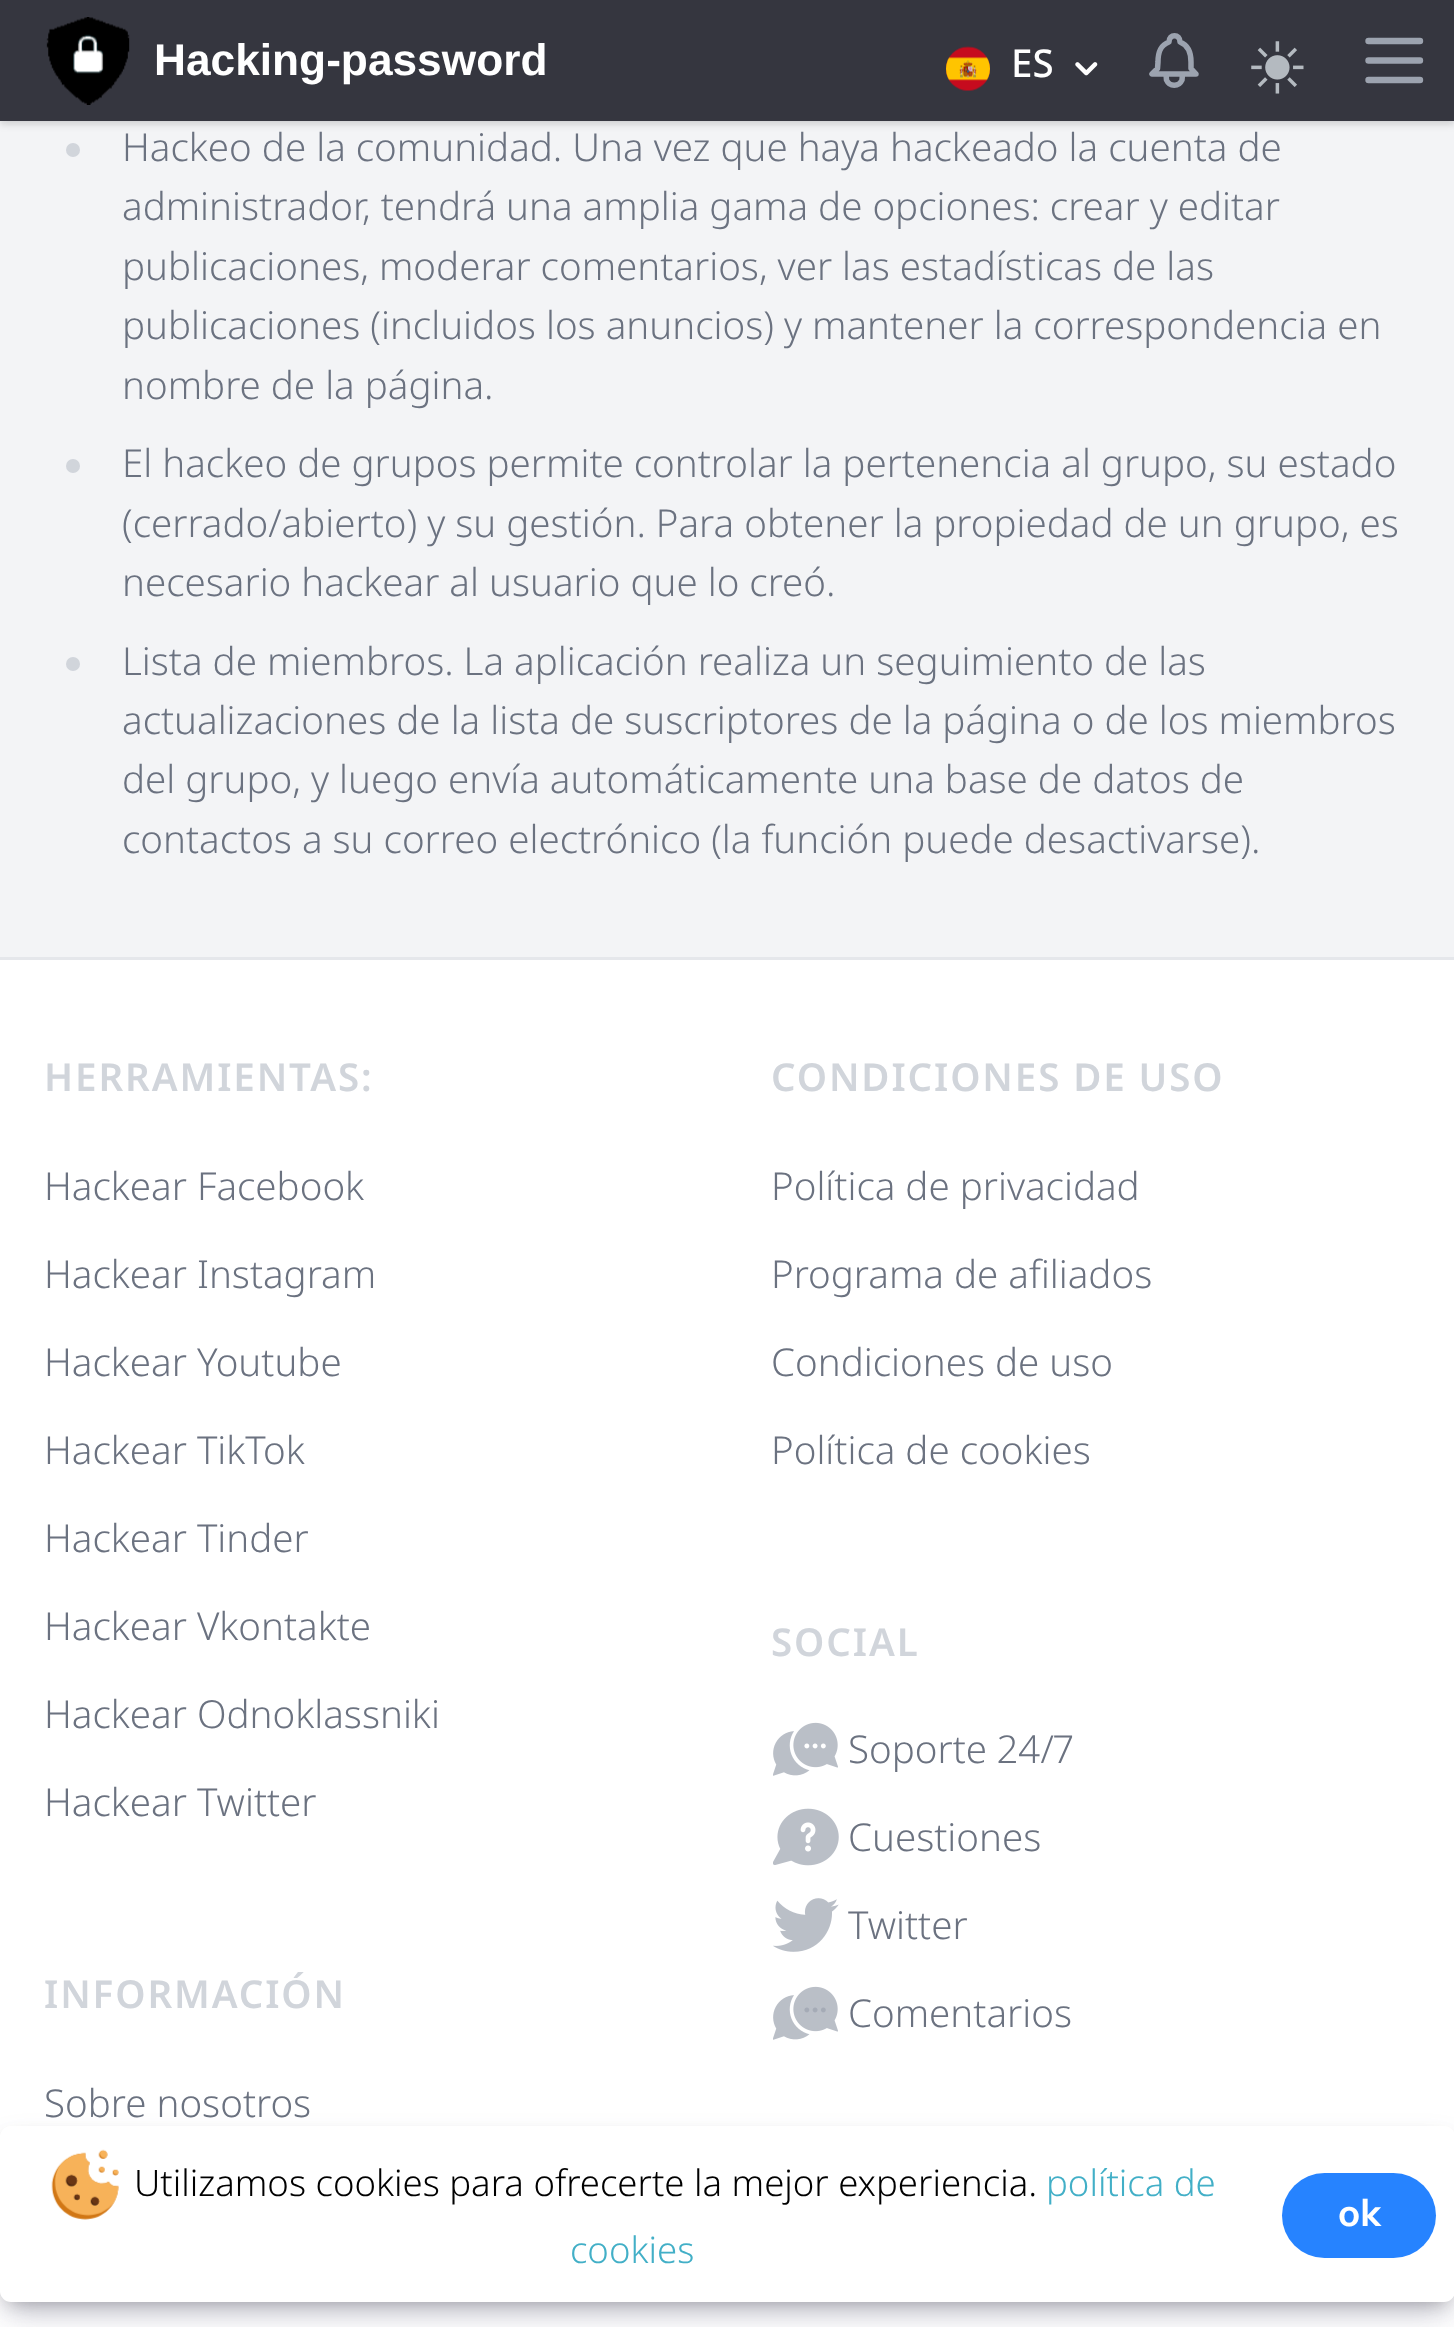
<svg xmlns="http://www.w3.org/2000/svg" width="1454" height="2327">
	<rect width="100%" height="100%" fill="#FFFFFF" />
	<rect x="0" y="121" width="1454" height="836" fill="#F3F4F6" />
	<rect x="0" y="3" width="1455" height="121" fill="#000000" fill-opacity="0.06" filter="blur(3px)" />
	<rect x="0" y="3" width="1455" height="121" fill="#000000" fill-opacity="0.1" filter="blur(4px)" />
	<rect x="0" y="0" width="1454" height="121" fill="#35363F" />
	<image x="46" y="17" width="84" height="88" href="assets/img1.png" />
	<text x="154" y="75" font-family="Liberation Sans" font-size="44.25" font-weight="700" fill="#FFFFFF">Hacking-password</text>
	<image x="946" y="46" width="44" height="45" href="assets/img2.png" />
	<text x="1011" y="77" font-family="Noto Sans" font-size="38.5" font-weight="500" fill="#FFFFFF">ES</text>
	<image x="1075" y="62" width="23" height="14" href="assets/img3.png" />
	<path d="M1182.5 74H1196L1191 68.5V62C1191 53.5 1189 45.5 1180 42C1180 33.5 1169 33.5 1169 42C1159.5 45.5 1158 53.5 1158 62L1157.5 68.5L1152 74H1166M1182.5 74L1182 80C1179 87 1169.5 87 1166.5 80L1166 74M1182.5 74H1166" fill="none" stroke="#9CA3AF" stroke-width="5.5" stroke-linecap="round" stroke-linejoin="round" />
	<image x="1251" y="41" width="53" height="53" href="assets/img4.png" />
	<path d="M1368.5 41H1420M1368.5 60.5H1420M1368.5 80H1420" fill="none" stroke="#9CA3AF" stroke-width="6.4" stroke-linecap="round" stroke-linejoin="round" />
	<circle cx="73" cy="150" r="7" fill="#D1D5DB" />
	<g font-family="Noto Sans" font-size="38.5" font-weight="300" fill="#6B7280">
		<text x="122" y="161">Hackeo de la comunidad. Una vez que haya hackeado la cuenta de</text>
		<text x="122" y="220">administrador, tendrá una amplia gama de opciones: crear y editar</text>
		<text x="122" y="280">publicaciones, moderar comentarios, ver las estadísticas de las</text>
		<text x="122" y="339">publicaciones (incluidos los anuncios) y mantener la correspondencia en</text>
		<text x="122" y="399">nombre de la página.</text>
	</g>
	<circle cx="73" cy="466" r="7" fill="#D1D5DB" />
	<g font-family="Noto Sans" font-size="38.5" font-weight="300" fill="#6B7280">
		<text x="122" y="477">El hackeo de grupos permite controlar la pertenencia al grupo, su estado</text>
		<text x="122" y="537">(cerrado/abierto) y su gestión. Para obtener la propiedad de un grupo, es</text>
		<text x="122" y="596">necesario hackear al usuario que lo creó.</text>
	</g>
	<circle cx="73" cy="664" r="7" fill="#D1D5DB" />
	<g font-family="Noto Sans" font-size="38.5" font-weight="300" fill="#6B7280">
		<text x="122" y="675">Lista de miembros. La aplicación realiza un seguimiento de las</text>
		<text x="122" y="734">actualizaciones de la lista de suscriptores de la página o de los miembros</text>
		<text x="122" y="793">del grupo, y luego envía automáticamente una base de datos de</text>
		<text x="122" y="853">contactos a su correo electrónico (la función puede desactivarse).</text>
	</g>
	<rect x="0" y="957" width="1454" height="3" fill="#E5E7EB" />
	<text x="44" y="1091" font-family="Noto Sans" font-size="38.5" font-weight="600" letter-spacing="1.9" fill="#D1D5DB">HERRAMIENTAS:</text>
	<g font-family="Noto Sans" font-size="38.5" font-weight="300" fill="#6B7280">
		<text x="44" y="1200">Hackear Facebook</text>
		<text x="44" y="1288">Hackear Instagram</text>
		<text x="44" y="1376">Hackear Youtube</text>
		<text x="44" y="1464">Hackear TikTok</text>
		<text x="44" y="1552">Hackear Tinder</text>
		<text x="44" y="1640">Hackear Vkontakte</text>
		<text x="44" y="1728">Hackear Odnoklassniki</text>
		<text x="44" y="1816">Hackear Twitter</text>
	</g>
	<text x="44" y="2008" font-family="Noto Sans" font-size="38.5" font-weight="600" letter-spacing="1.9" fill="#D1D5DB">INFORMACIÓN</text>
	<text x="44" y="2117" font-family="Noto Sans" font-size="38.5" font-weight="300" fill="#6B7280">Sobre nosotros</text>
	<text x="771" y="1091" font-family="Noto Sans" font-size="38.5" font-weight="600" letter-spacing="1.9" fill="#D1D5DB">CONDICIONES DE USO</text>
	<g font-family="Noto Sans" font-size="38.5" font-weight="300" fill="#6B7280">
		<text x="771" y="1200">Política de privacidad</text>
		<text x="771" y="1288">Programa de afiliados</text>
		<text x="771" y="1376">Condiciones de uso</text>
		<text x="771" y="1464">Política de cookies</text>
	</g>
	<text x="771" y="1656" font-family="Noto Sans" font-size="38.5" font-weight="600" letter-spacing="1.9" fill="#D1D5DB">SOCIAL</text>
	<image x="773" y="1722" width="65" height="54" href="assets/img5.png" />
	<text x="848" y="1763" font-family="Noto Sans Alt" font-size="38.5" font-weight="300" fill="#6B7280">Soporte 24/7</text>
	<image x="773" y="1808" width="66" height="58" href="assets/img6.png" />
	<text x="848" y="1851" font-family="Noto Sans" font-size="38.5" font-weight="300" fill="#6B7280">Cuestiones</text>
	<image x="773" y="1898" width="66" height="54" href="assets/img7.png" />
	<text x="848" y="1939" font-family="Noto Sans" font-size="38.5" font-weight="300" fill="#6B7280">Twitter</text>
	<image x="773" y="1986" width="65" height="54" href="assets/img8.png" />
	<text x="848" y="2027" font-family="Noto Sans" font-size="38.5" font-weight="300" fill="#6B7280">Comentarios</text>
	<rect x="8" y="2142" width="1439" height="160" rx="3" fill="#000000" fill-opacity="0.3" filter="blur(9.5px)" />
	<rect x="6" y="2148" width="1443" height="165" rx="6" fill="#32325D" fill-opacity="0.25" filter="blur(16.5px)" />
	<rect x="0" y="2126" width="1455" height="176" rx="11" fill="#FFFFFF" />
	<image x="51" y="2149" width="68" height="71" href="assets/img9.png" />
	<text x="134" y="2196" font-family="Noto Sans" font-size="36.5" font-weight="300" fill="#000000">Utilizamos cookies para ofrecerte la mejor experiencia.</text>
	<g font-family="Noto Sans" font-size="36.5" font-weight="300" fill="#42AFC7">
		<text x="1046" y="2196">política de</text>
		<text x="570" y="2263">cookies</text>
	</g>
	<rect x="1282" y="2173" width="154" height="85" rx="42.5" fill="#2683FF" />
	<text x="1338" y="2226" font-family="Nunito Sans" font-size="38.5" font-weight="700" fill="#FFFFFF">ok</text>
</svg>
